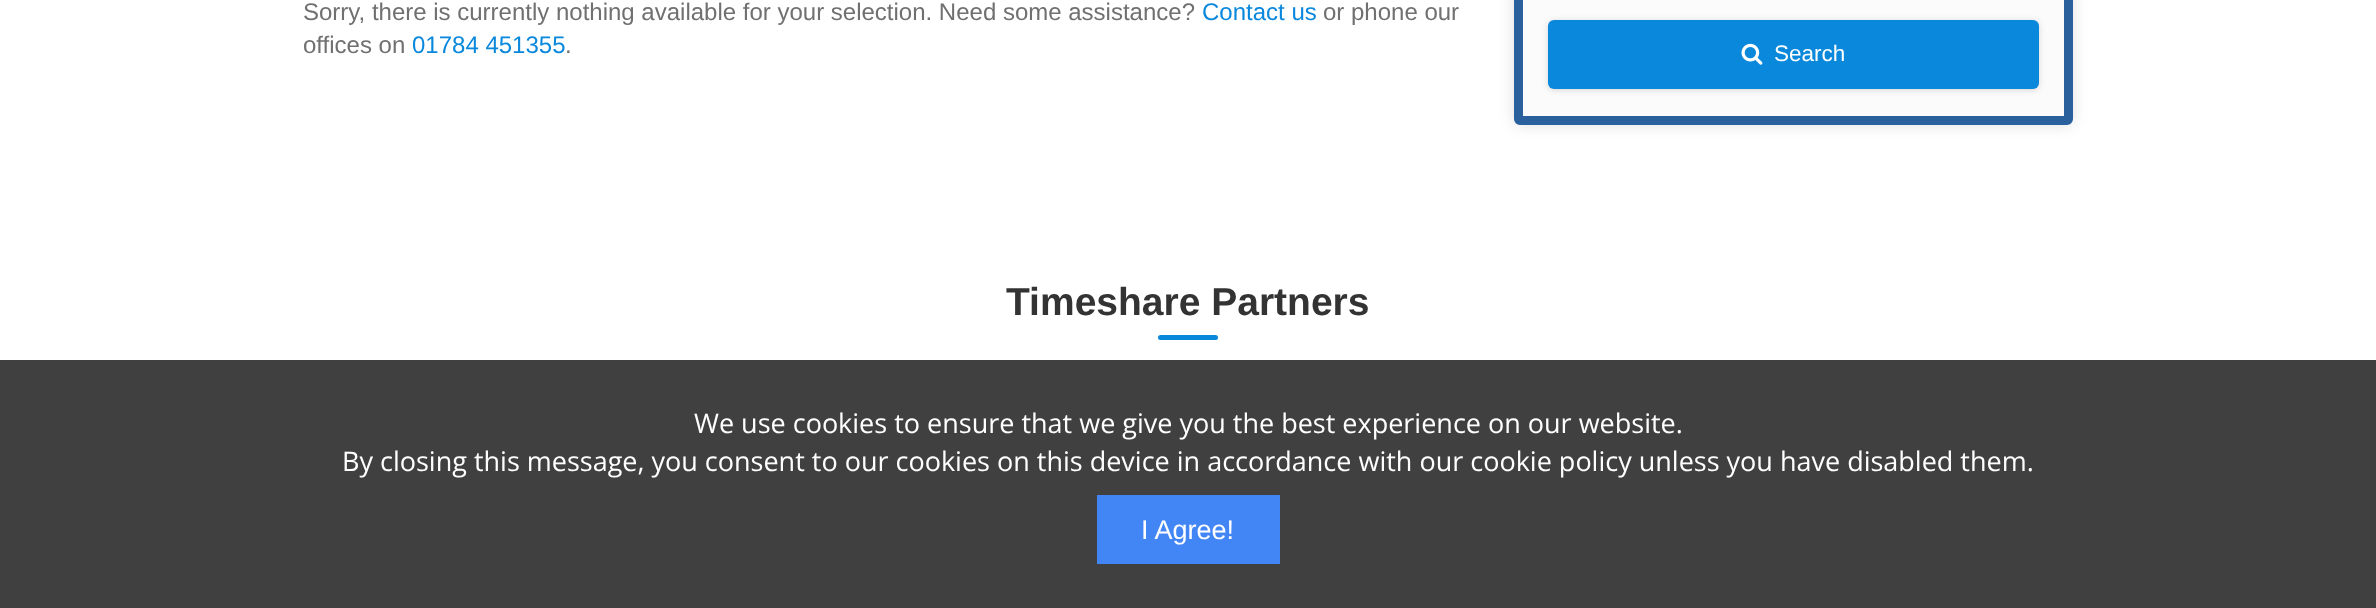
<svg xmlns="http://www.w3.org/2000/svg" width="2376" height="608">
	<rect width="100%" height="100%" fill="#FFFFFF" />
	<text x="303" y="20" font-family="Liberation Sans" font-size="24" fill="#707070">Sorry, there is currently nothing available for your selection. Need some assistance?</text>
	<text x="1202" y="20" font-family="Liberation Sans" font-size="24" fill="#0A88DC">Contact us</text>
	<g font-family="Liberation Sans" font-size="24" fill="#707070">
		<text x="1323" y="20">or phone our</text>
		<text x="303" y="53">offices on</text>
	</g>
	<text x="412" y="53" font-family="Liberation Sans" font-size="24" fill="#0A88DC">01784 451355</text>
	<text x="565" y="53" font-family="Liberation Sans" font-size="24" fill="#707070">.</text>
	<rect x="1514" y="-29" width="559" height="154" rx="6" fill="#000000" fill-opacity="0.12" filter="blur(7.5px)" />
	<rect x="1518.5" y="-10.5" width="550" height="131" rx="1.5" fill="#FBFBFB" stroke="#2A609C" stroke-width="9" />
	<rect x="1548" y="21" width="491" height="69" rx="6" fill="#000000" fill-opacity="0.15" filter="blur(3px)" />
	<rect x="1548" y="20" width="491" height="69" rx="6" fill="#0A88DC" />
	<image x="1741" y="43" width="22" height="22" href="assets/img1.png" />
	<text x="1774" y="61" font-family="Liberation Sans" font-size="22.5" fill="#FFFFFF">Search</text>
	<text x="1006" y="315" font-family="Liberation Sans" font-size="39" font-weight="700" fill="#333333">Timeshare Partners</text>
	<rect x="1158" y="335" width="60" height="5" rx="2.5" fill="#0A88DC" />
	<rect x="0" y="360" width="2376" height="248" fill="#404040" />
	<g font-family="Open Sans" font-size="27" fill="#FFFFFF">
		<text x="694" y="433">We use cookies to ensure that we give you the best experience on our website.</text>
		<text x="342" y="471">By closing this message, you consent to our cookies on this device in accordance with our cookie policy unless you have disabled them.</text>
	</g>
	<rect x="1097" y="495" width="183" height="69" fill="#4285F4" />
	<text x="1141" y="539" font-family="Liberation Sans" font-size="27" fill="#FFFFFF">I Agree!</text>
</svg>
